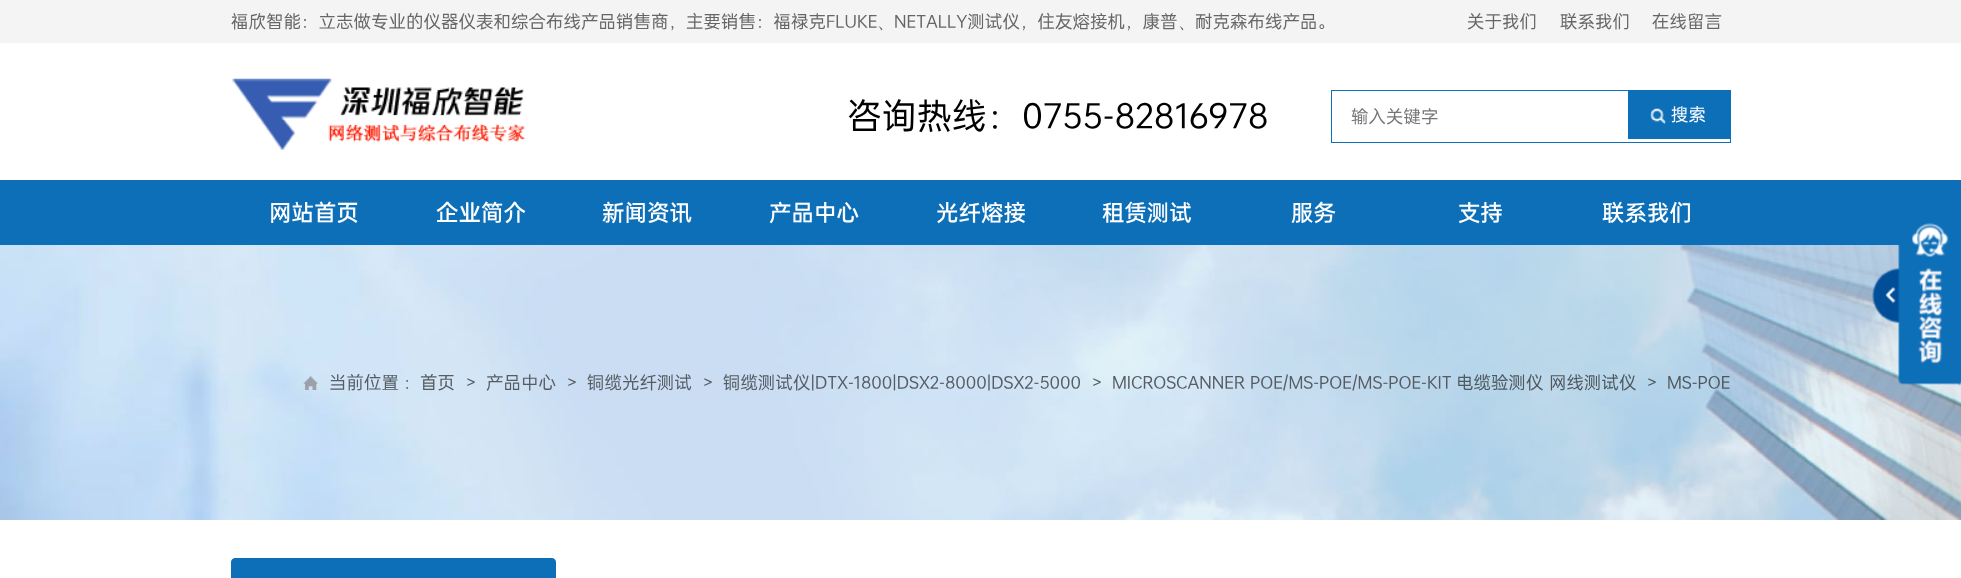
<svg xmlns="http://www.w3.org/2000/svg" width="1961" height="578">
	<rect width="100%" height="100%" fill="#FFFFFF" />
	<rect x="0" y="0" width="1961" height="43" fill="#F4F4F4" />
	<text x="231" y="28" font-family="'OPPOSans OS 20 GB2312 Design'" font-size="17.5" fill="#666666">福欣智能：立志做专业的仪器仪表和综合布线产品销售商，主要销售：福禄克FLUKE</text>
	<text x="877" y="28" font-family="WenQuanYi Zen Hei" font-size="17.5" font-weight="500" fill="#666666">、</text>
	<text x="894" y="28" font-family="'OPPOSans OS 20 GB2312 Design'" font-size="17.5" fill="#666666">NETALLY测试仪，住友熔接机，康普</text>
	<text x="1178" y="28" font-family="WenQuanYi Zen Hei" font-size="17.5" font-weight="500" fill="#666666">、</text>
	<g font-family="'OPPOSans OS 20 GB2312 Design'" font-size="17.5" fill="#666666">
		<text x="1195" y="28">耐克森布线产品。</text>
		<text x="1467" y="28">关于我们</text>
		<text x="1560" y="28">联系我们</text>
		<text x="1652" y="28">在线留言</text>
	</g>
	<image x="232" y="78" width="294" height="72" href="assets/img1.png" />
	<text x="847" y="129" font-family="'OPPOSans OS 20 GB2312 Design'" font-size="35" fill="#000000">咨询热线：0755-82816978</text>
	<rect x="1331.5" y="90.5" width="399" height="52" fill="none" stroke="#0D6FB8" />
	<text x="1351" y="123" font-family="'OPPOSans OS 20 GB2312 Design'" font-size="17.5" fill="#757575">输入关键字</text>
	<rect x="1628" y="91" width="102" height="48" fill="#0D6FB8" />
	<image x="1650" y="108" width="17" height="16" href="assets/img2.png" />
	<text x="1671" y="121" font-family="'OPPOSans OS 20 GB2312 Design'" font-size="17.5" fill="#FFFFFF">搜索</text>
	<rect x="0" y="180" width="1961" height="65" fill="#0D6FB8" />
	<g font-family="'OPPOSans OS 20 GB2312 Design'" font-size="22.5" font-weight="500" fill="#FFFFFF">
		<text x="269" y="221">网站首页</text>
		<text x="436" y="221">企业简介</text>
		<text x="602" y="221">新闻资讯</text>
		<text x="769" y="221">产品中心</text>
		<text x="936" y="221">光纤熔接</text>
		<text x="1102" y="221">租赁测试</text>
		<text x="1291" y="221">服务</text>
		<text x="1458" y="221">支持</text>
		<text x="1602" y="221">联系我们</text>
	</g>
	<image x="0" y="245" width="1961" height="275" href="assets/img3.png" />
	<image x="303" y="376" width="15" height="14" href="assets/img4.png" />
	<g font-family="'OPPOSans OS 20 GB2312 Design'" font-size="17.5" fill="#565C62">
		<text x="329" y="389">当前位置</text>
		<text x="405" y="389">:</text>
		<text x="420" y="389">首页</text>
		<text x="466" y="389">&gt;</text>
		<text x="486" y="389">产品中心</text>
		<text x="567" y="389">&gt;</text>
		<text x="587" y="389">铜缆光纤测试</text>
		<text x="703" y="389">&gt;</text>
		<text x="723" y="389">铜缆测试仪|DTX-1800|DSX2-8000|DSX2-5000</text>
		<text x="1092" y="389">&gt;</text>
		<text x="1112" y="389">MICROSCANNER</text>
		<text x="1250" y="389">POE/MS-POE/MS-POE-KIT</text>
	</g>
	<g font-family="'OPPOSans OS 20 GB2312 Design'" font-size="17.5" fill="#4F585E">
		<text x="1456" y="389">电缆验测仪</text>
		<text x="1549" y="389">网线测试仪</text>
		<text x="1647" y="389">&gt;</text>
		<text x="1667" y="389">MS-POE</text>
	</g>
	<image x="1872" y="223" width="89" height="163" href="assets/img5.png" />
	<path d="M235 558H552C554 558 556 560 556 562V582H231V562C231 560 233 558 235 558Z" fill="#0D6FB8" />
</svg>
